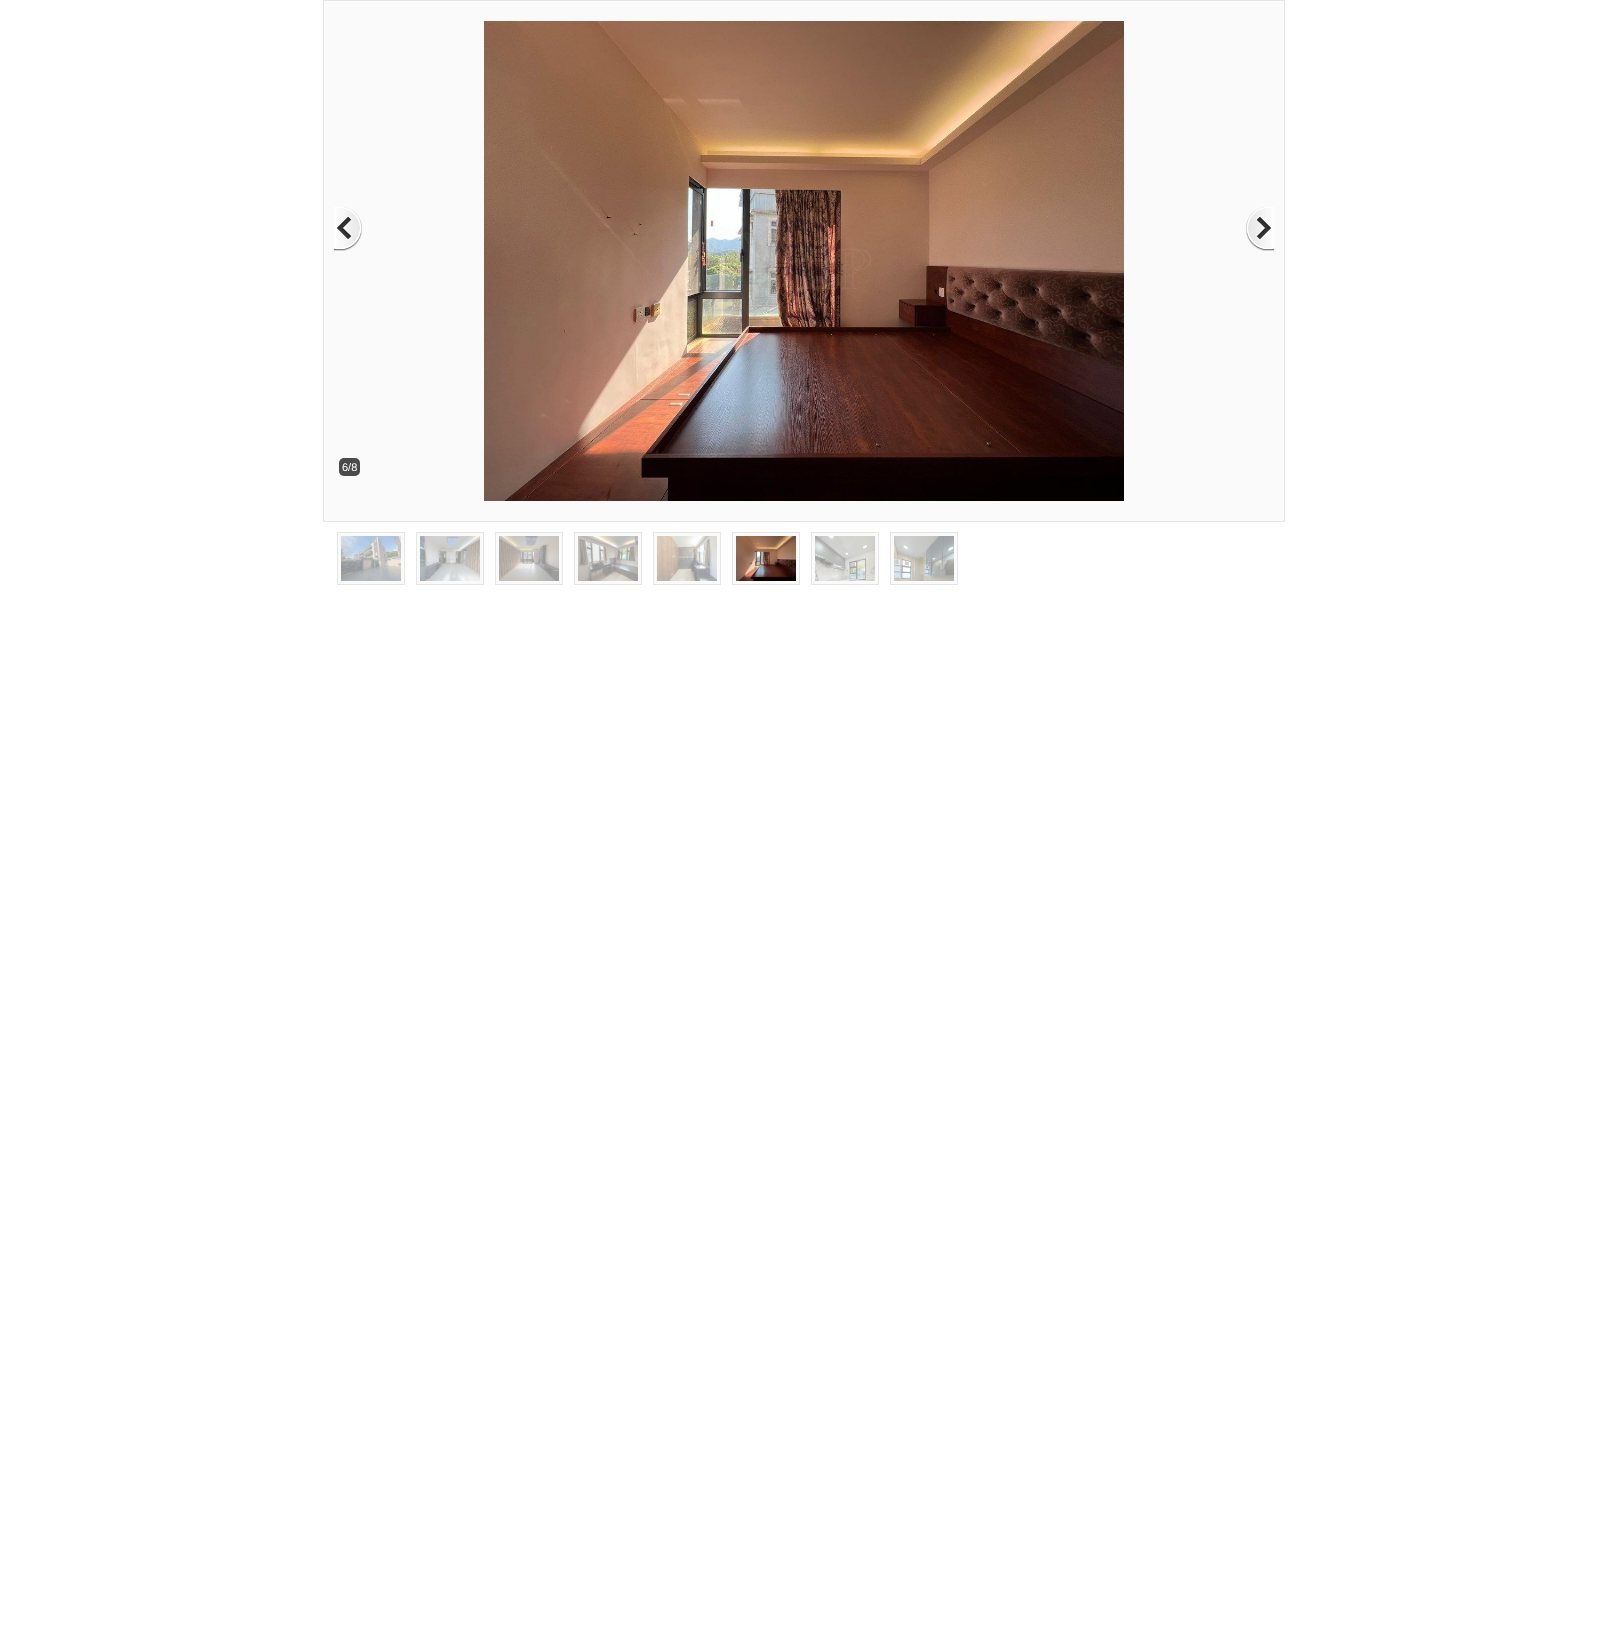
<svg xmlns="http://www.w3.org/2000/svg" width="1616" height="1628">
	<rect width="100%" height="100%" fill="#FFFFFF" />
	<rect x="323.5" y="0.5" width="961" height="521" fill="#FAFAFA" stroke="#E5E5E5" />
	<image x="334" y="207" width="28" height="44" href="assets/img1.png" />
	<image x="1246" y="207" width="28" height="44" href="assets/img2.png" />
	<rect x="339" y="458" width="21" height="18" rx="5" fill="#4B4B4B" />
	<text x="342" y="471" font-family="Liberation Sans" font-size="11" fill="#FFFFFF">6/8</text>
	<image x="484" y="21" width="640" height="480" href="assets/img3.png" />
	<rect x="337.5" y="532.5" width="67" height="52" fill="#FAFAFA" stroke="#E5E5E5" />
	<image x="341" y="536" width="60" height="45" href="assets/img4.png" />
	<rect x="416.5" y="532.5" width="67" height="52" fill="#FAFAFA" stroke="#E5E5E5" />
	<image x="420" y="536" width="60" height="45" href="assets/img5.png" />
	<rect x="495.5" y="532.5" width="67" height="52" fill="#FAFAFA" stroke="#E5E5E5" />
	<image x="499" y="536" width="60" height="45" href="assets/img6.png" />
	<rect x="574.5" y="532.5" width="67" height="52" fill="#FAFAFA" stroke="#E5E5E5" />
	<image x="578" y="536" width="60" height="45" href="assets/img7.png" />
	<rect x="653.5" y="532.5" width="67" height="52" fill="#FAFAFA" stroke="#E5E5E5" />
	<image x="657" y="536" width="60" height="45" href="assets/img8.png" />
	<rect x="732.5" y="532.5" width="67" height="52" fill="#FAFAFA" stroke="#E5E5E5" />
	<image x="736" y="536" width="60" height="45" href="assets/img9.png" />
	<rect x="811.5" y="532.5" width="67" height="52" fill="#FAFAFA" stroke="#E5E5E5" />
	<image x="815" y="536" width="60" height="45" href="assets/img10.png" />
	<rect x="890.5" y="532.5" width="67" height="52" fill="#FAFAFA" stroke="#E5E5E5" />
	<image x="894" y="536" width="60" height="45" href="assets/img11.png" />
</svg>
